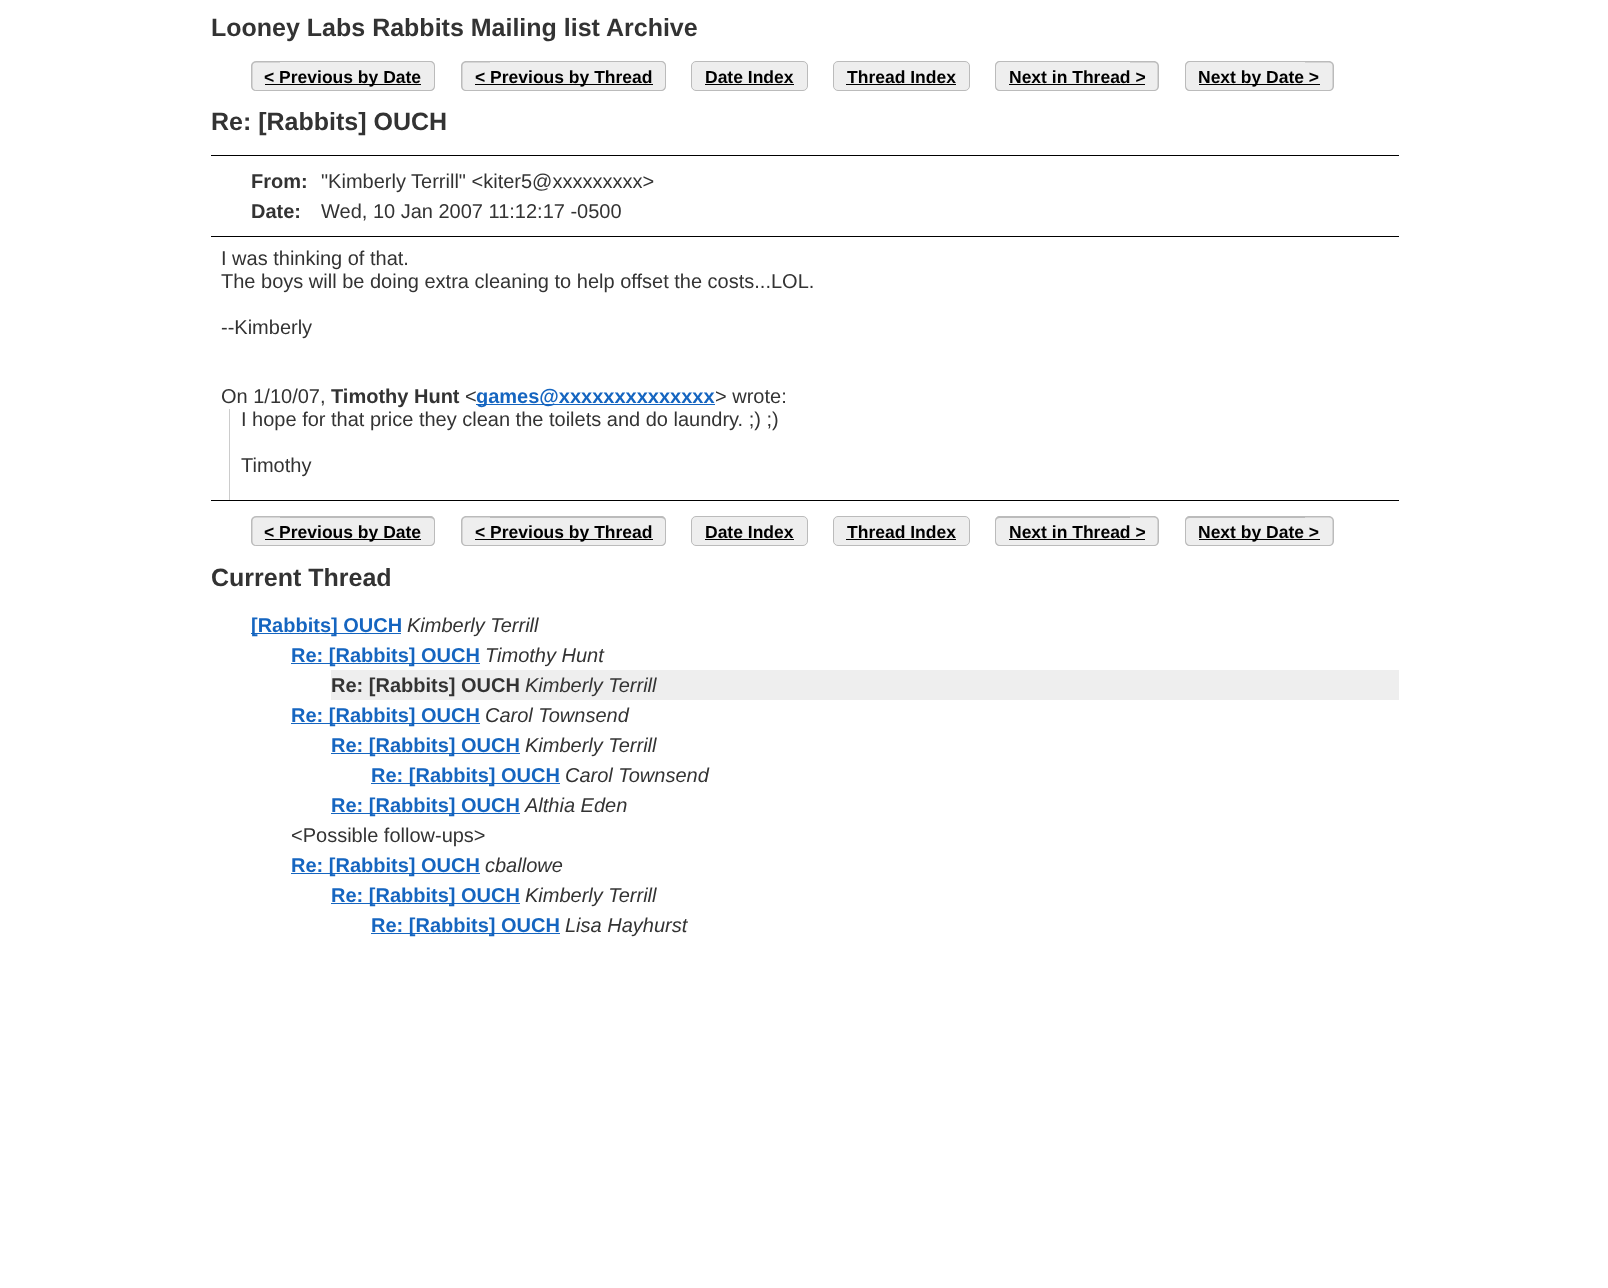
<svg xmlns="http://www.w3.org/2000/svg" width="1608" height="1288">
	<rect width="100%" height="100%" fill="#FFFFFF" />
	<text x="211" y="36" font-family="Liberation Sans" font-size="25" font-weight="700" fill="#333333">Looney Labs Rabbits Mailing list Archive</text>
	<path d="M256 61H280V91H256C253 91 251 89 251 86V66C251 63 253 61 256 61Z" fill="#EEEEEE" />
	<path d="M256 61H280V91H256C253.5 91 251 89 251 86V66C251 63.5 253.5 61 256 61ZM256 62.5H280V90H256C254 90 252.5 88.5 252.5 86V66C252.5 64 254 62.5 256 62.5Z" fill="#BBBBBB" fill-rule="evenodd" />
	<path d="M280 61H430C433 61 435 63 435 66V86C435 89 433 91 430 91H280Z" fill="#EEEEEE" />
	<path d="M280 61H430C433 61 435 63 435 66V86C435 89 433 91 430 91H280ZM280 62H430C432 62 434 64 434 66V86C434 88 432 90 430 90H280Z" fill="#BBBBBB" fill-rule="evenodd" />
	<rect x="265" y="84" width="156" height="1" fill="#000000" />
	<text x="264" y="83" font-family="Liberation Sans" font-size="17.5" font-weight="700" fill="#000000">&lt; Previous by Date</text>
	<path d="M466 61H490V91H466C463 91 461 89 461 86V66C461 63 463 61 466 61Z" fill="#EEEEEE" />
	<path d="M466 61H490V91H466C463.5 91 461 89 461 86V66C461 63.5 463.5 61 466 61ZM466 62.5H490V90H466C464 90 462.5 88.5 462.5 86V66C462.5 64 464 62.5 466 62.5Z" fill="#BBBBBB" fill-rule="evenodd" />
	<path d="M490 61H661C664 61 666 63 666 66V86C666 89 664 91 661 91H490Z" fill="#EEEEEE" />
	<path d="M490 61H661C664 61 666 63 666 66V86C666 89 664 91 661 91H490ZM490 62H661C663 62 665 64 665 66V86C665 88 663 90 661 90H490Z" fill="#BBBBBB" fill-rule="evenodd" />
	<rect x="475" y="84" width="178" height="1" fill="#000000" />
	<text x="475" y="83" font-family="Liberation Sans" font-size="17.5" font-weight="700" fill="#000000">&lt; Previous by Thread</text>
	<rect x="691.5" y="61.5" width="116" height="29" rx="4.5" fill="#EEEEEE" stroke="#BBBBBB" />
	<text x="705" y="83" font-family="Liberation Sans" font-size="17.5" font-weight="700" fill="#000000">Date Index</text>
	<rect x="705" y="84" width="89" height="1" fill="#000000" />
	<rect x="833.5" y="61.5" width="136" height="29" rx="4.5" fill="#EEEEEE" stroke="#BBBBBB" />
	<text x="847" y="83" font-family="Liberation Sans" font-size="17.5" font-weight="700" fill="#000000">Thread Index</text>
	<rect x="846" y="84" width="110" height="1" fill="#000000" />
	<path d="M1000 61H1130V91H1000C997 91 995 89 995 86V66C995 63 997 61 1000 61Z" fill="#EEEEEE" />
	<path d="M1000 61H1130V91H1000C997 91 995 89 995 86V66C995 63 997 61 1000 61ZM1000 62H1130V90H1000C998 90 996 88 996 86V66C996 64 998 62 1000 62Z" fill="#BBBBBB" fill-rule="evenodd" />
	<path d="M1130 61H1154C1157 61 1159 63 1159 66V86C1159 89 1157 91 1154 91H1130Z" fill="#EEEEEE" />
	<path d="M1130 61H1154C1156.5 61 1159 63.5 1159 66V86C1159 89 1156.5 91 1154 91H1130ZM1130 62.5H1154C1156 62.5 1157.5 64 1157.5 66V86C1157.5 88.5 1156 90 1154 90H1130Z" fill="#BBBBBB" fill-rule="evenodd" />
	<text x="1009" y="83" font-family="Liberation Sans" font-size="17.5" font-weight="700" fill="#000000">Next in Thread &gt;</text>
	<rect x="1009" y="84" width="136" height="1" fill="#000000" />
	<path d="M1190 61H1305V91H1190C1187 91 1185 89 1185 86V66C1185 63 1187 61 1190 61Z" fill="#EEEEEE" />
	<path d="M1190 61H1305V91H1190C1187 91 1185 89 1185 86V66C1185 63 1187 61 1190 61ZM1190 62H1305V90H1190C1188 90 1186 88 1186 86V66C1186 64 1188 62 1190 62Z" fill="#BBBBBB" fill-rule="evenodd" />
	<path d="M1305 61H1329C1332 61 1334 63 1334 66V86C1334 89 1332 91 1329 91H1305Z" fill="#EEEEEE" />
	<path d="M1305 61H1329C1331.5 61 1334 63.5 1334 66V86C1334 89 1331.5 91 1329 91H1305ZM1305 62.5H1329C1331 62.5 1332.5 64 1332.5 66V86C1332.5 88.5 1331 90 1329 90H1305Z" fill="#BBBBBB" fill-rule="evenodd" />
	<rect x="1199" y="84" width="121" height="1" fill="#000000" />
	<text x="1198" y="83" font-family="Liberation Sans" font-size="17.5" font-weight="700" fill="#000000">Next by Date &gt;</text>
	<text x="211" y="130" font-family="Liberation Sans" font-size="25" font-weight="700" fill="#333333">Re: [Rabbits] OUCH</text>
	<rect x="211" y="155" width="1188" height="1" fill="#000000" />
	<rect x="211" y="236" width="1188" height="1" fill="#000000" />
	<text x="251" y="188" font-family="Liberation Sans" font-size="20" font-weight="700" fill="#333333">From:</text>
	<text x="321" y="188" font-family="Liberation Sans" font-size="20" fill="#333333">"Kimberly Terrill" &lt;kiter5@xxxxxxxxx&gt;</text>
	<text x="251" y="218" font-family="Liberation Sans" font-size="20" font-weight="700" fill="#333333">Date:</text>
	<text x="321" y="218" font-family="Liberation Sans" font-size="20" fill="#333333">Wed, 10 Jan 2007 11:12:17 -0500</text>
	<rect x="211" y="500" width="1188" height="1" fill="#000000" />
	<g font-family="Liberation Sans" font-size="20" fill="#333333">
		<text x="221" y="265">I was thinking of that.</text>
		<text x="221" y="288">The boys will be doing extra cleaning to help offset the costs...LOL.</text>
		<text x="221" y="334">--Kimberly</text>
		<text x="221" y="403">On 1/10/07,</text>
	</g>
	<text x="331" y="403" font-family="Liberation Sans" font-size="20" font-weight="700" fill="#333333">Timothy Hunt</text>
	<text x="465" y="403" font-family="Liberation Sans" font-size="20" fill="#333333">&lt;</text>
	<rect x="476" y="404" width="239" height="1" fill="#1565C0" />
	<text x="476" y="403" font-family="Liberation Sans" font-size="20" font-weight="700" fill="#1565C0">games@xxxxxxxxxxxxxx</text>
	<text x="715" y="403" font-family="Liberation Sans" font-size="20" fill="#333333">&gt; wrote:</text>
	<rect x="229" y="409" width="1" height="91" fill="#CCCCCC" />
	<g font-family="Liberation Sans" font-size="20" fill="#333333">
		<text x="241" y="426">I hope for that price they clean the toilets and do laundry. ;) ;)</text>
		<text x="241" y="472">Timothy</text>
	</g>
	<path d="M256 516H280V546H256C253 546 251 544 251 541V521C251 518 253 516 256 516Z" fill="#EEEEEE" />
	<path d="M256 516H280V546H256C253.5 546 251 544 251 541V521C251 518.5 253.5 516 256 516ZM256 517.5H280V545H256C254 545 252.5 543.5 252.5 541V521C252.5 519 254 517.5 256 517.5Z" fill="#BBBBBB" fill-rule="evenodd" />
	<path d="M280 516H430C433 516 435 518 435 521V541C435 544 433 546 430 546H280Z" fill="#EEEEEE" />
	<path d="M280 516H430C433 516 435 518 435 521V541C435 544 433 546 430 546H280ZM280 518H430C432 518 434 519 434 521V541C434 543 432 545 430 545H280Z" fill="#BBBBBB" fill-rule="evenodd" />
	<rect x="265" y="539" width="156" height="1" fill="#000000" />
	<text x="264" y="538" font-family="Liberation Sans" font-size="17.5" font-weight="700" fill="#000000">&lt; Previous by Date</text>
	<path d="M466 516H490V546H466C463 546 461 544 461 541V521C461 518 463 516 466 516Z" fill="#EEEEEE" />
	<path d="M466 516H490V546H466C463.5 546 461 544 461 541V521C461 518.5 463.5 516 466 516ZM466 517.5H490V545H466C464 545 462.5 543.5 462.5 541V521C462.5 519 464 517.5 466 517.5Z" fill="#BBBBBB" fill-rule="evenodd" />
	<path d="M490 516H661C664 516 666 518 666 521V541C666 544 664 546 661 546H490Z" fill="#EEEEEE" />
	<path d="M490 516H661C664 516 666 518 666 521V541C666 544 664 546 661 546H490ZM490 518H661C663 518 665 519 665 521V541C665 543 663 545 661 545H490Z" fill="#BBBBBB" fill-rule="evenodd" />
	<rect x="475" y="539" width="178" height="1" fill="#000000" />
	<text x="475" y="538" font-family="Liberation Sans" font-size="17.5" font-weight="700" fill="#000000">&lt; Previous by Thread</text>
	<rect x="691.5" y="516.5" width="116" height="29" rx="4.5" fill="#EEEEEE" stroke="#BBBBBB" />
	<text x="705" y="538" font-family="Liberation Sans" font-size="17.5" font-weight="700" fill="#000000">Date Index</text>
	<rect x="705" y="539" width="89" height="1" fill="#000000" />
	<rect x="833.5" y="516.5" width="136" height="29" rx="4.5" fill="#EEEEEE" stroke="#BBBBBB" />
	<text x="847" y="538" font-family="Liberation Sans" font-size="17.5" font-weight="700" fill="#000000">Thread Index</text>
	<rect x="846" y="539" width="110" height="1" fill="#000000" />
	<path d="M1000 516H1130V546H1000C997 546 995 544 995 541V521C995 518 997 516 1000 516Z" fill="#EEEEEE" />
	<path d="M1000 516H1130V546H1000C997 546 995 544 995 541V521C995 518 997 516 1000 516ZM1000 518H1130V545H1000C998 545 996 543 996 541V521C996 519 998 518 1000 518Z" fill="#BBBBBB" fill-rule="evenodd" />
	<path d="M1130 516H1154C1157 516 1159 518 1159 521V541C1159 544 1157 546 1154 546H1130Z" fill="#EEEEEE" />
	<path d="M1130 516H1154C1156.5 516 1159 518.5 1159 521V541C1159 544 1156.5 546 1154 546H1130ZM1130 517.5H1154C1156 517.5 1157.5 519 1157.5 521V541C1157.5 543.5 1156 545 1154 545H1130Z" fill="#BBBBBB" fill-rule="evenodd" />
	<text x="1009" y="538" font-family="Liberation Sans" font-size="17.5" font-weight="700" fill="#000000">Next in Thread &gt;</text>
	<rect x="1009" y="539" width="136" height="1" fill="#000000" />
	<path d="M1190 516H1305V546H1190C1187 546 1185 544 1185 541V521C1185 518 1187 516 1190 516Z" fill="#EEEEEE" />
	<path d="M1190 516H1305V546H1190C1187 546 1185 544 1185 541V521C1185 518 1187 516 1190 516ZM1190 518H1305V545H1190C1188 545 1186 543 1186 541V521C1186 519 1188 518 1190 518Z" fill="#BBBBBB" fill-rule="evenodd" />
	<path d="M1305 516H1329C1332 516 1334 518 1334 521V541C1334 544 1332 546 1329 546H1305Z" fill="#EEEEEE" />
	<path d="M1305 516H1329C1331.5 516 1334 518.5 1334 521V541C1334 544 1331.5 546 1329 546H1305ZM1305 517.5H1329C1331 517.5 1332.5 519 1332.5 521V541C1332.5 543.5 1331 545 1329 545H1305Z" fill="#BBBBBB" fill-rule="evenodd" />
	<rect x="1199" y="539" width="121" height="1" fill="#000000" />
	<text x="1198" y="538" font-family="Liberation Sans" font-size="17.5" font-weight="700" fill="#000000">Next by Date &gt;</text>
	<text x="211" y="586" font-family="Liberation Sans" font-size="25" font-weight="700" fill="#333333">Current Thread</text>
	<rect x="251" y="633" width="150" height="1" fill="#1565C0" />
	<text x="251" y="632" font-family="Liberation Sans" font-size="20" font-weight="700" fill="#1565C0">[Rabbits] OUCH</text>
	<text x="407" y="632" font-family="Liberation Sans" font-size="20" font-style="italic" fill="#333333">Kimberly Terrill</text>
	<rect x="291" y="663" width="189" height="1" fill="#1565C0" />
	<text x="291" y="662" font-family="Liberation Sans" font-size="20" font-weight="700" fill="#1565C0">Re: [Rabbits] OUCH</text>
	<text x="485" y="662" font-family="Liberation Sans" font-size="20" font-style="italic" fill="#333333">Timothy Hunt</text>
	<rect x="331" y="670" width="1068" height="30" fill="#EEEEEE" />
	<text x="331" y="692" font-family="Liberation Sans" font-size="20" font-weight="700" fill="#333333">Re: [Rabbits] OUCH</text>
	<text x="525" y="692" font-family="Liberation Sans" font-size="20" font-style="italic" fill="#333333">Kimberly Terrill</text>
	<rect x="291" y="723" width="189" height="1" fill="#1565C0" />
	<text x="291" y="722" font-family="Liberation Sans" font-size="20" font-weight="700" fill="#1565C0">Re: [Rabbits] OUCH</text>
	<text x="485" y="722" font-family="Liberation Sans" font-size="20" font-style="italic" fill="#333333">Carol Townsend</text>
	<rect x="331" y="753" width="189" height="1" fill="#1565C0" />
	<text x="331" y="752" font-family="Liberation Sans" font-size="20" font-weight="700" fill="#1565C0">Re: [Rabbits] OUCH</text>
	<text x="525" y="752" font-family="Liberation Sans" font-size="20" font-style="italic" fill="#333333">Kimberly Terrill</text>
	<rect x="371" y="783" width="189" height="1" fill="#1565C0" />
	<text x="371" y="782" font-family="Liberation Sans" font-size="20" font-weight="700" fill="#1565C0">Re: [Rabbits] OUCH</text>
	<text x="565" y="782" font-family="Liberation Sans" font-size="20" font-style="italic" fill="#333333">Carol Townsend</text>
	<rect x="331" y="813" width="189" height="1" fill="#1565C0" />
	<text x="331" y="812" font-family="Liberation Sans" font-size="20" font-weight="700" fill="#1565C0">Re: [Rabbits] OUCH</text>
	<text x="525" y="812" font-family="Liberation Sans" font-size="20" font-style="italic" fill="#333333">Althia Eden</text>
	<text x="291" y="842" font-family="Liberation Sans" font-size="20" fill="#333333">&lt;Possible follow-ups&gt;</text>
	<rect x="291" y="873" width="189" height="1" fill="#1565C0" />
	<text x="291" y="872" font-family="Liberation Sans" font-size="20" font-weight="700" fill="#1565C0">Re: [Rabbits] OUCH</text>
	<text x="485" y="872" font-family="Liberation Sans" font-size="20" font-style="italic" fill="#333333">cballowe</text>
	<rect x="331" y="903" width="189" height="1" fill="#1565C0" />
	<text x="331" y="902" font-family="Liberation Sans" font-size="20" font-weight="700" fill="#1565C0">Re: [Rabbits] OUCH</text>
	<text x="525" y="902" font-family="Liberation Sans" font-size="20" font-style="italic" fill="#333333">Kimberly Terrill</text>
	<rect x="371" y="933" width="189" height="1" fill="#1565C0" />
	<text x="371" y="932" font-family="Liberation Sans" font-size="20" font-weight="700" fill="#1565C0">Re: [Rabbits] OUCH</text>
	<text x="565" y="932" font-family="Liberation Sans" font-size="20" font-style="italic" fill="#333333">Lisa Hayhurst</text>
</svg>
